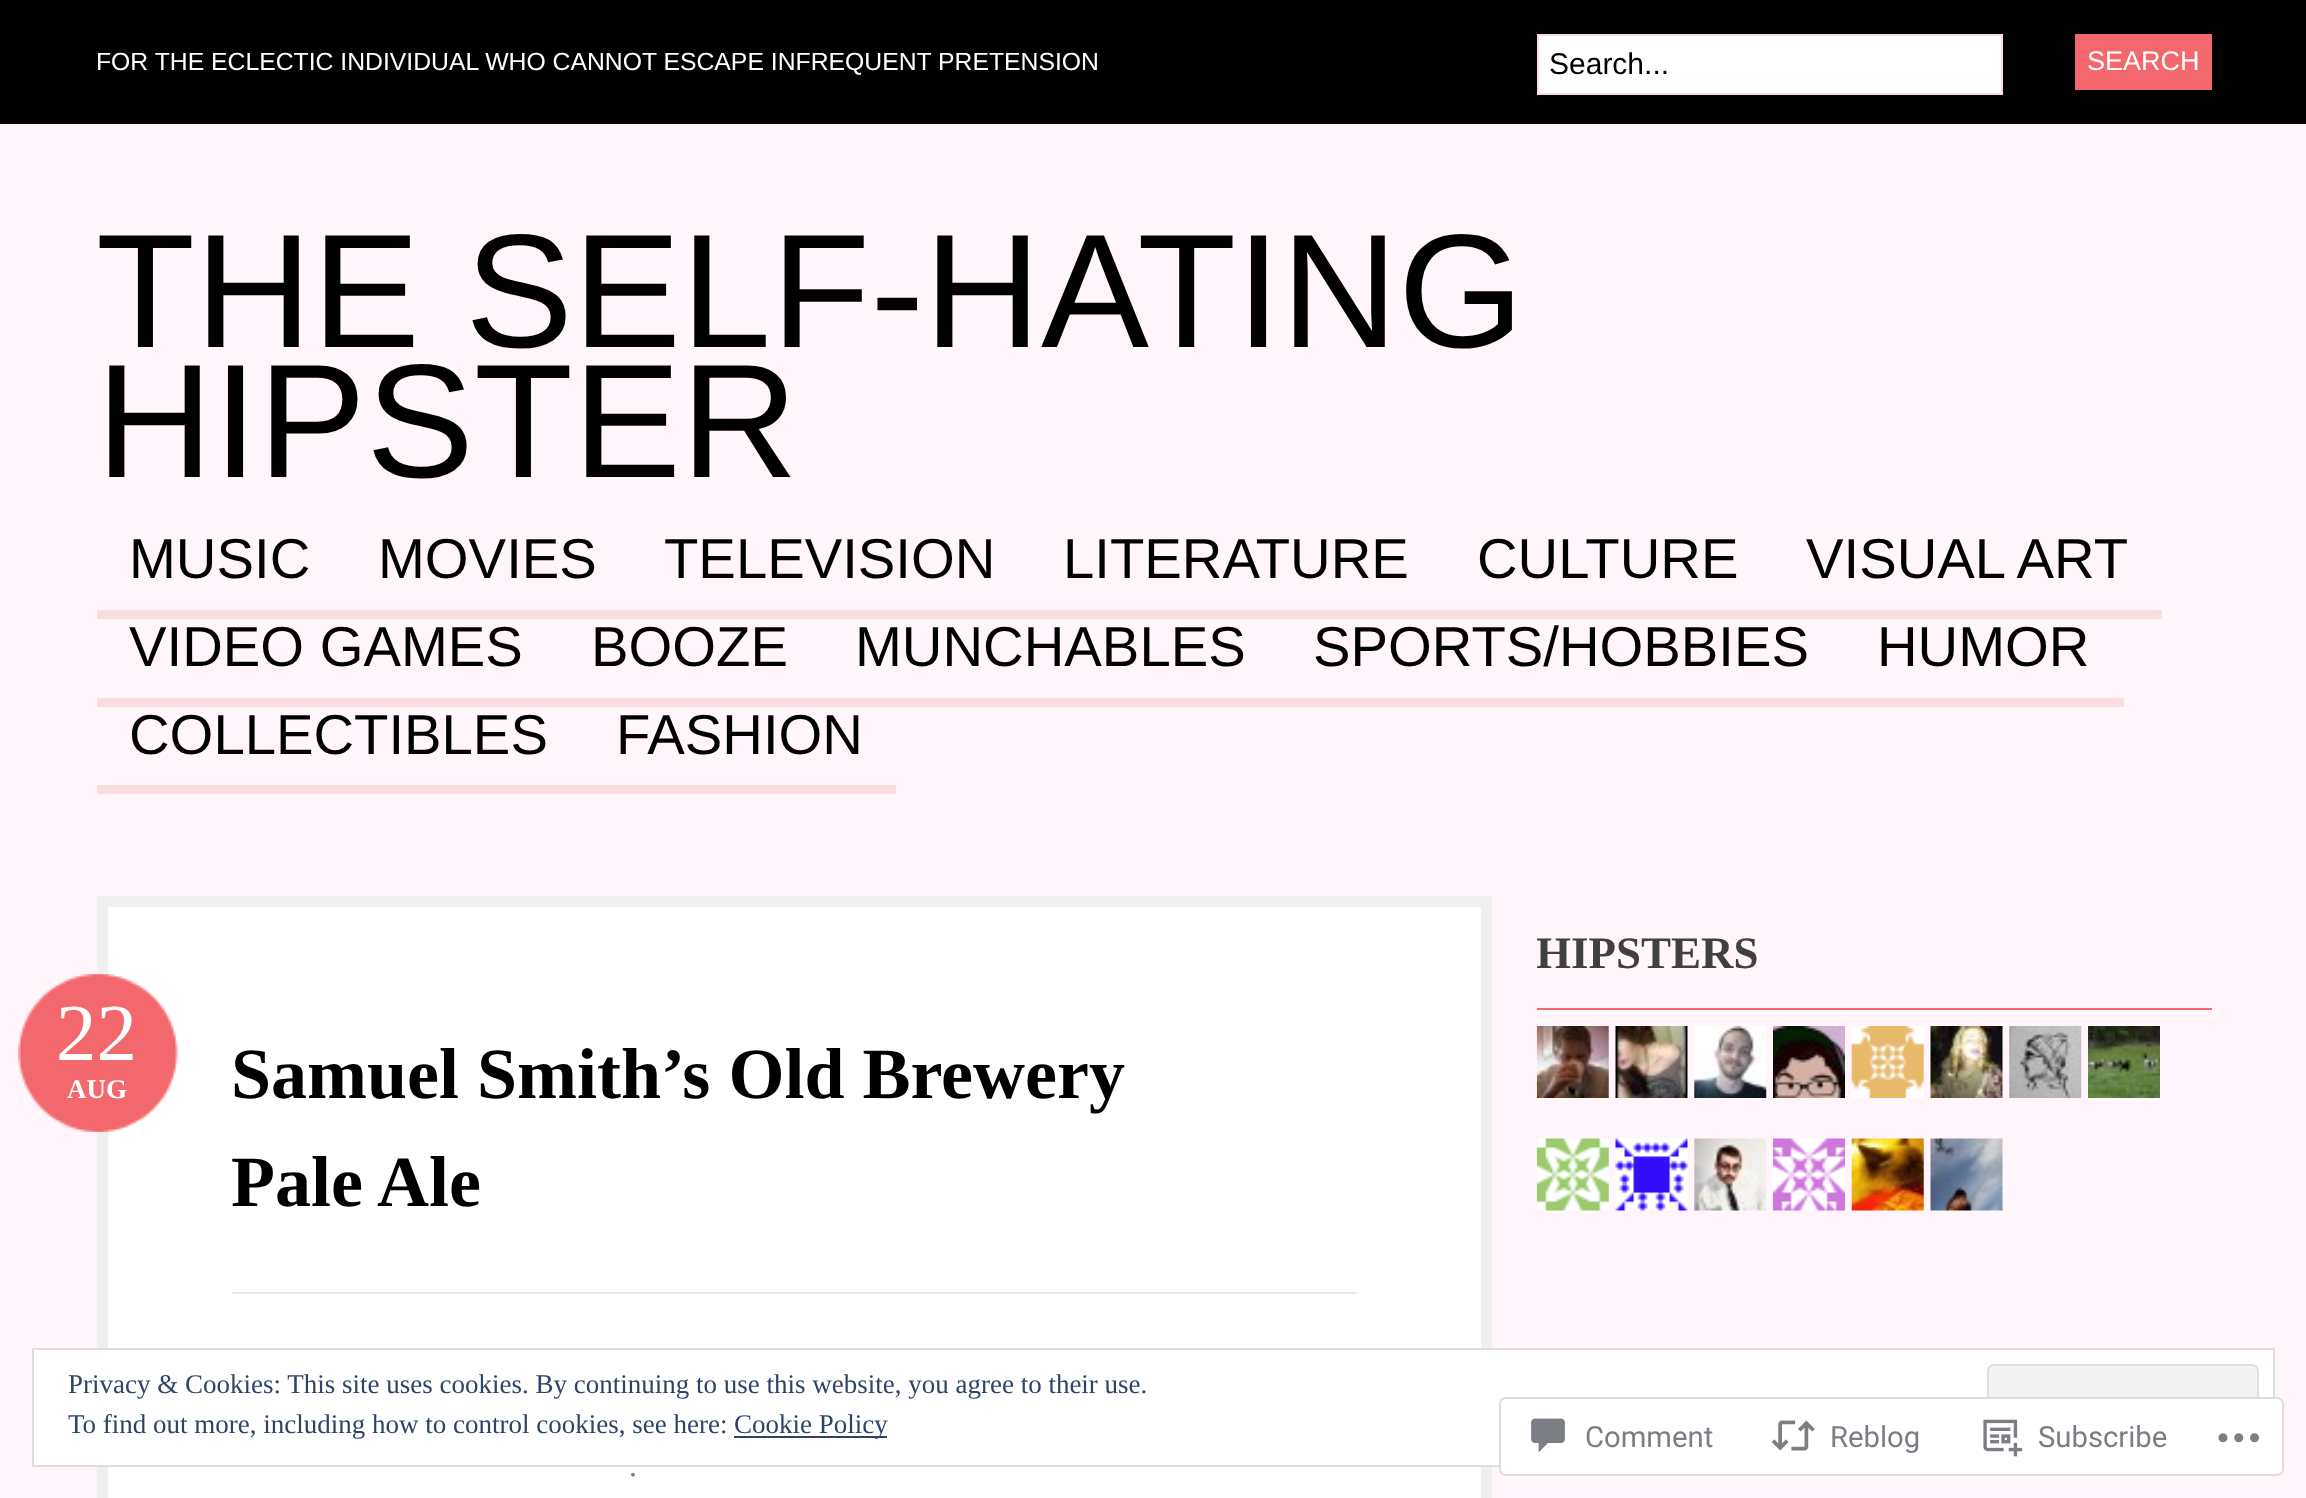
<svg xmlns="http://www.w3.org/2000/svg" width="2306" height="1498">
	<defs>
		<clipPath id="clip1"><rect x="1537" y="896" width="675" height="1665" /></clipPath>
	</defs>
	<rect width="100%" height="100%" fill="#FFF5FB" />
	<rect x="0" y="0" width="2306" height="124" fill="#000000" />
	<text x="96" y="70" font-family="Liberation Sans" font-size="24.75" fill="#FFFFFF">FOR THE ECLECTIC INDIVIDUAL WHO CANNOT ESCAPE INFREQUENT PRETENSION</text>
	<rect x="1538" y="35" width="464" height="59" fill="#FFFFFF" stroke="#FBDDDF" stroke-width="2" />
	<text x="1549" y="74" font-family="Liberation Sans" font-size="30" fill="#000000">Search...</text>
	<rect x="2075" y="34" width="137" height="56" fill="#F3686D" />
	<text x="2087" y="70" font-family="Liberation Sans" font-size="27" fill="#FFFFFF">SEARCH</text>
	<g font-family="Liberation Sans" font-size="162" fill="#000000">
		<text x="96" y="347">THE SELF-HATING</text>
		<text x="96" y="477">HIPSTER</text>
	</g>
	<rect x="97" y="610" width="2065" height="9" fill="#FBDDDF" />
	<g font-family="Liberation Sans" font-size="56.25" fill="#000000">
		<text x="129" y="578">MUSIC</text>
		<text x="378" y="578">MOVIES</text>
		<text x="664" y="578">TELEVISION</text>
		<text x="1063" y="578">LITERATURE</text>
		<text x="1477" y="578">CULTURE</text>
		<text x="1806" y="578">VISUAL ART</text>
	</g>
	<rect x="97" y="698" width="2027" height="9" fill="#FBDDDF" />
	<g font-family="Liberation Sans" font-size="56.25" fill="#000000">
		<text x="129" y="666">VIDEO GAMES</text>
		<text x="591" y="666">BOOZE</text>
		<text x="855" y="666">MUNCHABLES</text>
		<text x="1313" y="666">SPORTS/HOBBIES</text>
		<text x="1877" y="666">HUMOR</text>
	</g>
	<rect x="97" y="785" width="799" height="9" fill="#FBDDDF" />
	<g font-family="Liberation Sans" font-size="56.25" fill="#000000">
		<text x="129" y="754">COLLECTIBLES</text>
		<text x="616" y="754">FASHION</text>
	</g>
	<rect x="1537" y="1008" width="675" height="2" fill="#F3686D" />
	<g clip-path="url(#clip1)">
		<text x="1536" y="968" font-family="Liberation Serif" font-size="45" font-weight="700" fill="#404040">HIPSTERS</text>
	</g>
	<image x="1536" y="1026" width="73" height="72" href="assets/img1.png" />
	<image x="1615" y="1026" width="73" height="72" href="assets/img2.png" />
	<image x="1694" y="1026" width="73" height="72" href="assets/img3.png" />
	<image x="1773" y="1026" width="72" height="72" href="assets/img4.png" />
	<image x="1851" y="1026" width="73" height="72" href="assets/img5.png" />
	<image x="1930" y="1026" width="73" height="72" href="assets/img6.png" />
	<image x="2009" y="1026" width="73" height="72" href="assets/img7.png" />
	<image x="2088" y="1026" width="72" height="72" href="assets/img8.png" />
	<image x="1536" y="1138" width="73" height="73" href="assets/img9.png" />
	<image x="1615" y="1138" width="73" height="73" href="assets/img10.png" />
	<image x="1694" y="1138" width="73" height="73" href="assets/img11.png" />
	<image x="1773" y="1138" width="72" height="73" href="assets/img12.png" />
	<image x="1851" y="1138" width="73" height="73" href="assets/img13.png" />
	<image x="1930" y="1138" width="73" height="73" href="assets/img14.png" />
	<rect x="102.5" y="901.5" width="1384" height="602" fill="#FFFFFF" stroke="#EFEFEF" stroke-width="11" />
	<image x="18" y="974" width="160" height="158" href="assets/img15.png" />
	<text x="56" y="1060" font-family="Liberation Serif" font-size="81" fill="#FFFFFF">22</text>
	<text x="67" y="1098" font-family="Liberation Serif" font-size="27" font-weight="700" fill="#FFFFFF">AUG</text>
	<rect x="232" y="1292" width="1125" height="2" fill="#E7E7E7" />
	<g font-family="Liberation Serif" font-size="72" font-weight="700" fill="#000000">
		<text x="231" y="1098">Samuel Smith’s Old Brewery</text>
		<text x="231" y="1206">Pale Ale</text>
	</g>
	<text x="629" y="1476" font-family="Liberation Serif" font-size="32" fill="#7A7A7A">.</text>
	<rect x="33" y="1349" width="2241" height="117" fill="#FFFFFF" stroke="#DEDEDE" stroke-width="2" />
	<text x="68" y="1393" font-family="Liberation Serif" font-size="27" fill="#2E4467">Privacy &amp; Cookies: This site uses cookies. By continuing to use this website, you agree to their use.</text>
	<rect x="1988" y="1365" width="270" height="85" rx="6" fill="#F3F3F3" stroke="#DEDEDE" stroke-width="2" />
	<text x="68" y="1433" font-family="Liberation Serif" font-size="27" fill="#2E4467">To find out more, including how to control cookies, see here:</text>
	<rect x="734" y="1436" width="153" height="2" fill="#2E4467" />
	<text x="734" y="1433" font-family="Liberation Serif" font-size="27" fill="#2E4467">Cookie Policy</text>
	<rect x="1499" y="1397" width="785" height="79" rx="7" fill="#FFFFFF" fill-opacity="0.98" />
	<rect x="1500" y="1398" width="783" height="77" rx="6" fill="none" stroke="#DCDCDE" stroke-opacity="0.98" stroke-width="2" />
	<image x="1531" y="1418" width="34" height="35" href="assets/img16.png" />
	<text x="1585" y="1447" font-family="Roboto" font-size="29.25" fill="#7B7F85">Comment</text>
	<image x="1771" y="1420" width="44" height="31" href="assets/img17.png" />
	<text x="1830" y="1447" font-family="Roboto" font-size="29.25" fill="#7B7F85">Reblog</text>
	<image x="1983" y="1419" width="40" height="38" href="assets/img18.png" />
	<text x="2038" y="1447" font-family="Roboto" font-size="29.25" fill="#7B7F85">Subscribe</text>
	<image x="2218" y="1433" width="41" height="10" href="assets/img19.png" />
</svg>
